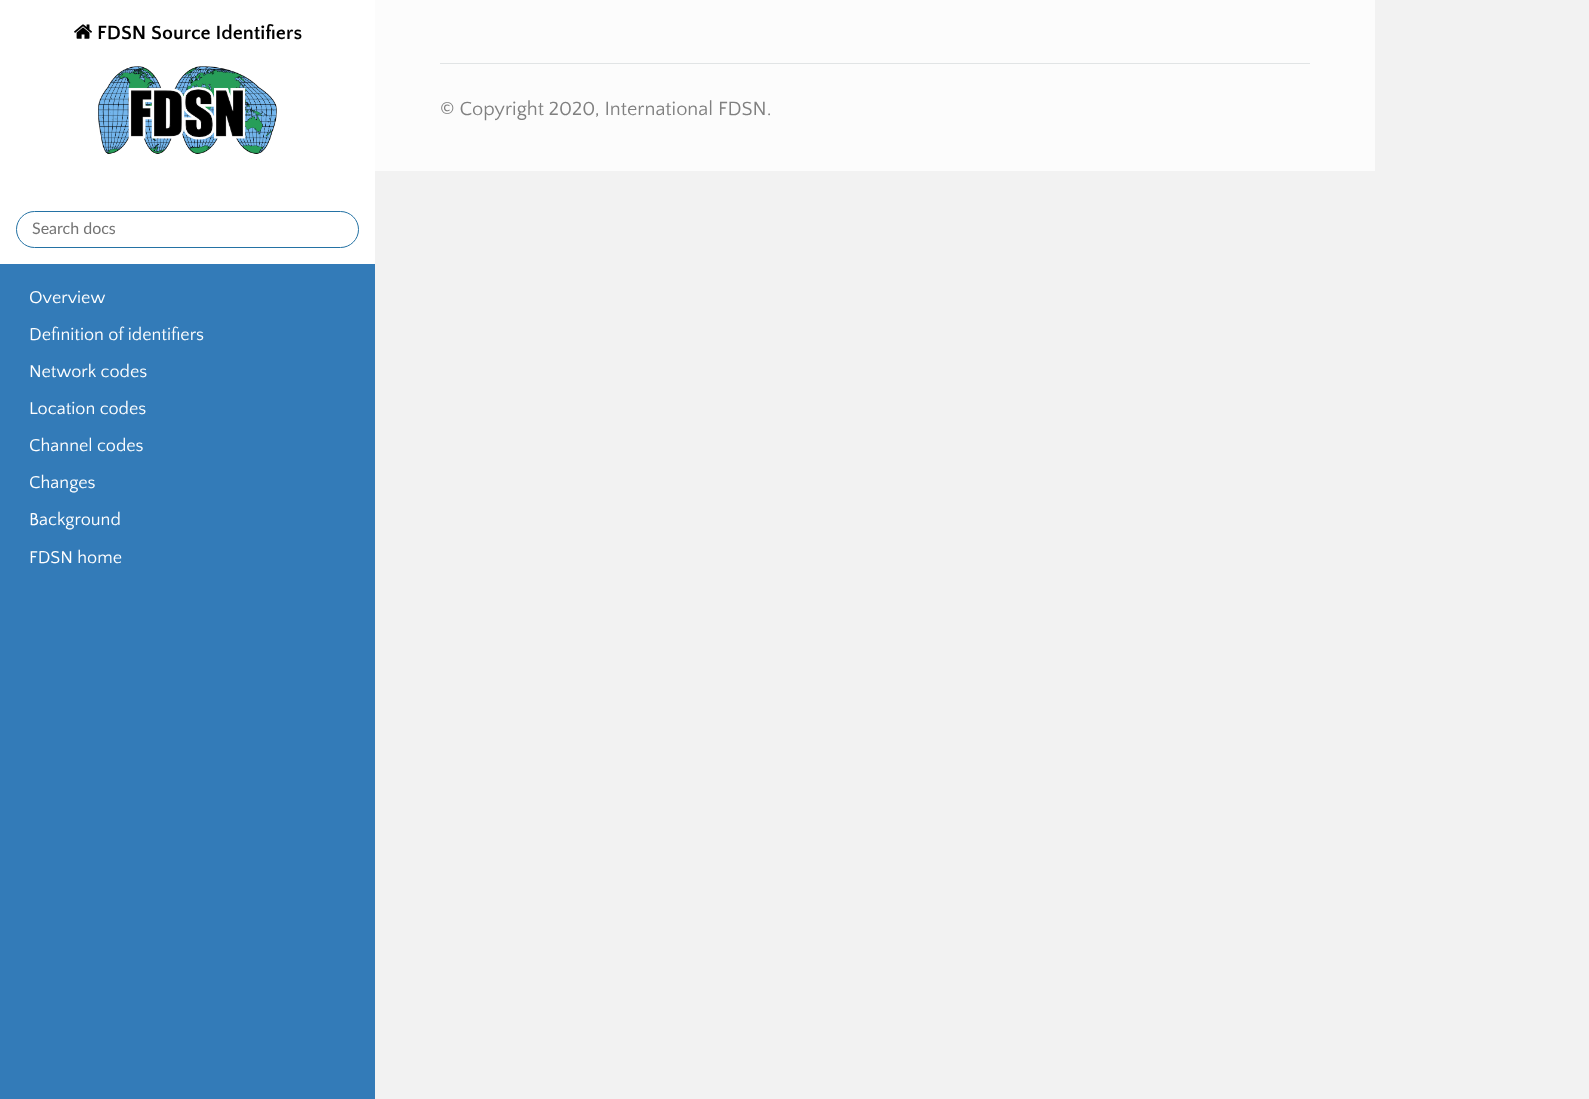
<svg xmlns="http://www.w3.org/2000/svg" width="1589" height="1099">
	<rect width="100%" height="100%" fill="#F2F2F2" />
	<rect x="0" y="264" width="375" height="835" fill="#337BB8" />
	<rect x="0" y="0" width="375" height="264" fill="#FFFFFF" />
	<image x="74" y="24" width="18" height="15" href="assets/img1.png" />
	<text x="97" y="39" font-family="Quattrocento Sans" font-size="20" font-weight="700" fill="#000000">FDSN Source Identifiers</text>
	<image x="98" y="66" width="179" height="88" href="assets/img2.png" />
	<rect x="16.5" y="211.5" width="342" height="36" rx="18" fill="none" stroke="#2472A4" />
	<text x="32" y="234" font-family="Lato" font-size="16" fill="#757575">Search docs</text>
	<g font-family="Quattrocento Sans" font-size="18" fill="#FFFFFF">
		<text x="29" y="303">Overview</text>
		<text x="29" y="340">Definition of identifiers</text>
		<text x="29" y="377">Network codes</text>
		<text x="29" y="414">Location codes</text>
		<text x="29" y="451">Channel codes</text>
		<text x="29" y="488">Changes</text>
		<text x="29" y="525">Background</text>
		<text x="29" y="563">FDSN home</text>
	</g>
	<rect x="375" y="0" width="1000" height="171" fill="#FCFCFC" />
	<rect x="440" y="63" width="870" height="1" fill="#E1E4E5" />
	<text x="440" y="115" font-family="Quattrocento Sans" font-size="20" fill="#808080">© Copyright 2020, International FDSN.</text>
</svg>
